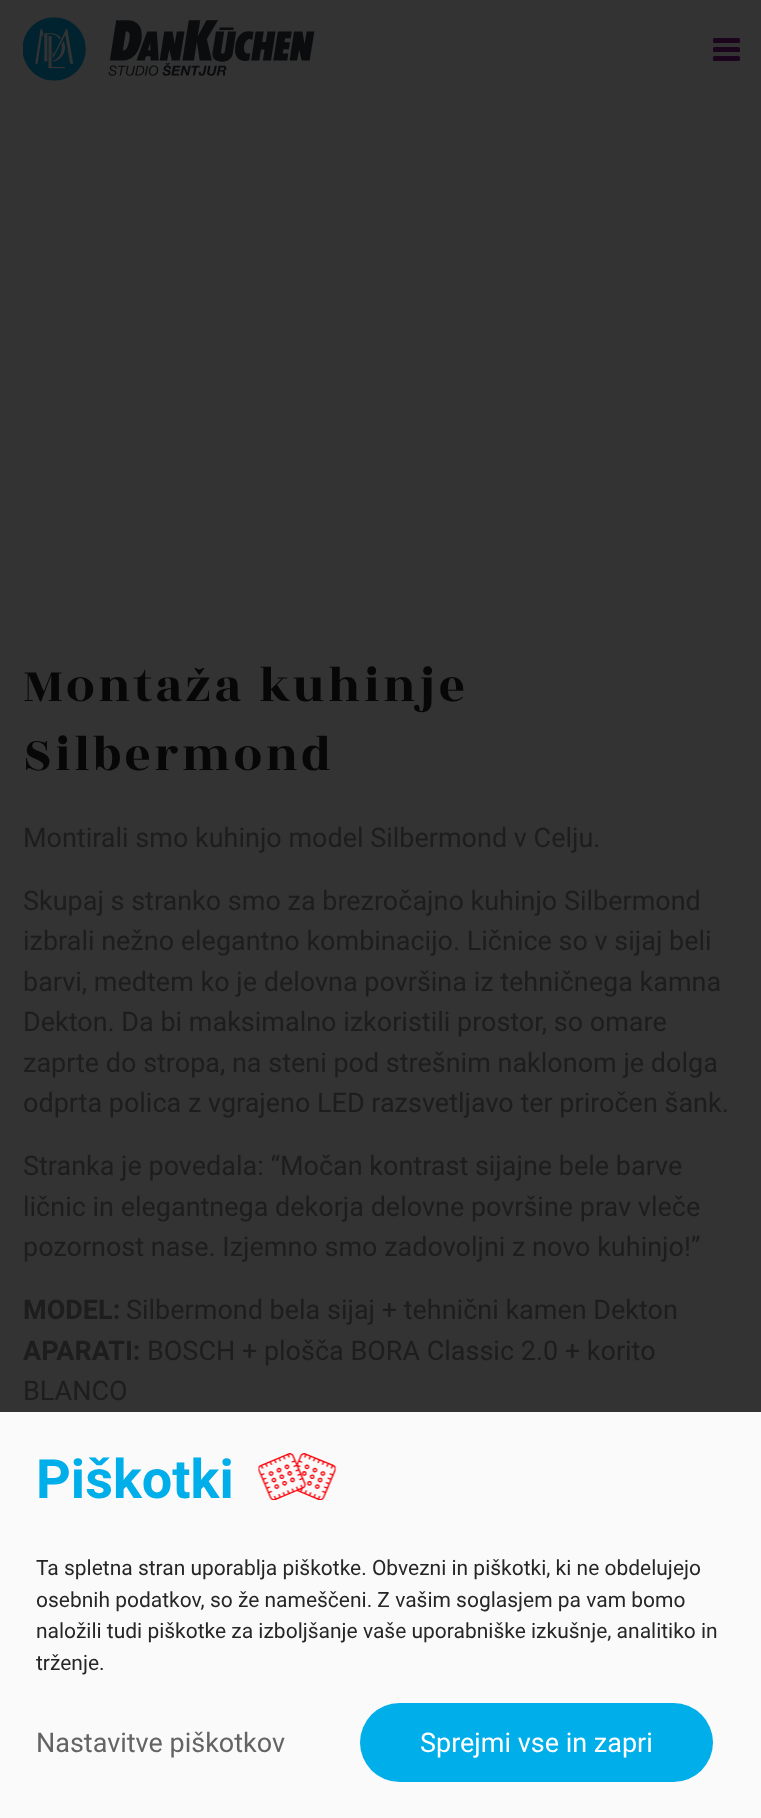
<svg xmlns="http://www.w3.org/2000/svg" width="761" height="1818">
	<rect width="100%" height="100%" fill="#333333" />
	<image x="23" y="17" width="292" height="64" href="assets/img1.png" />
	<rect x="713" y="47" width="27" height="5" rx="1.5" fill="#1A051D" />
	<rect x="713" y="38" width="27" height="5" rx="1.5" fill="#1A051D" />
	<rect x="713" y="56" width="27" height="5" rx="1.5" fill="#1A051D" />
	<g font-family="Rozha One" font-size="51" letter-spacing="3" fill="#070708">
		<text x="23" y="701">Montaža kuhinje</text>
		<text x="23" y="770">Silbermond</text>
	</g>
	<g font-family="Roboto" font-size="27" fill="#1D1D1D">
		<text x="23" y="847">Montirali smo kuhinjo model Silbermond v Celju.</text>
		<text x="23" y="910">Skupaj s stranko smo za brezročajno kuhinjo Silbermond</text>
		<text x="23" y="950">izbrali nežno elegantno kombinacijo. Ličnice so v sijaj beli</text>
		<text x="23" y="991">barvi, medtem ko je delovna površina iz tehničnega kamna</text>
		<text x="23" y="1031">Dekton. Da bi maksimalno izkoristili prostor, so omare</text>
		<text x="23" y="1072">zaprte do stropa, na steni pod strešnim naklonom je dolga</text>
		<text x="23" y="1112">odprta polica z vgrajeno LED razsvetljavo ter priročen šank.</text>
		<text x="23" y="1175">Stranka je povedala: “Močan kontrast sijajne bele barve</text>
		<text x="23" y="1216">ličnic in elegantnega dekorja delovne površine prav vleče</text>
		<text x="23" y="1256">pozornost nase. Izjemno smo zadovoljni z novo kuhinjo!”</text>
	</g>
	<text x="23" y="1319" font-family="Roboto" font-size="27" font-weight="700" fill="#1D1D1D">MODEL:</text>
	<text x="126" y="1319" font-family="Roboto" font-size="27" fill="#1D1D1D">Silbermond bela sijaj + tehnični kamen Dekton</text>
	<text x="23" y="1360" font-family="Roboto" font-size="27" font-weight="700" fill="#1D1D1D">APARATI:</text>
	<g font-family="Roboto" font-size="27" fill="#1D1D1D">
		<text x="147" y="1360">BOSCH + plošča BORA Classic 2.0 + korito</text>
		<text x="23" y="1400">BLANCO</text>
	</g>
	<rect x="0" y="1412" width="761" height="406" fill="#FAFAFA" />
	<text x="36" y="1498" font-family="Roboto" font-size="54" font-weight="700" fill="#00AEE9">Piškotki</text>
	<image x="258" y="1453" width="79" height="47" href="assets/img2.png" />
	<g font-family="Roboto" font-size="21" fill="#262626">
		<text x="36" y="1575">Ta spletna stran uporablja piškotke. Obvezni in piškotki, ki ne obdelujejo</text>
		<text x="36" y="1607">osebnih podatkov, so že nameščeni. Z vašim soglasjem pa vam bomo</text>
		<text x="36" y="1638">naložili tudi piškotke za izboljšanje vaše uporabniške izkušnje, analitiko in</text>
		<text x="36" y="1670">trženje.</text>
	</g>
	<text x="36" y="1752" font-family="Roboto" font-size="27" fill="#646464">Nastavitve piškotkov</text>
	<rect x="360" y="1703" width="353" height="79" rx="39.5" fill="#00AEE9" />
	<text x="420" y="1752" font-family="Roboto" font-size="27" fill="#FFFFFF">Sprejmi vse in zapri</text>
</svg>
